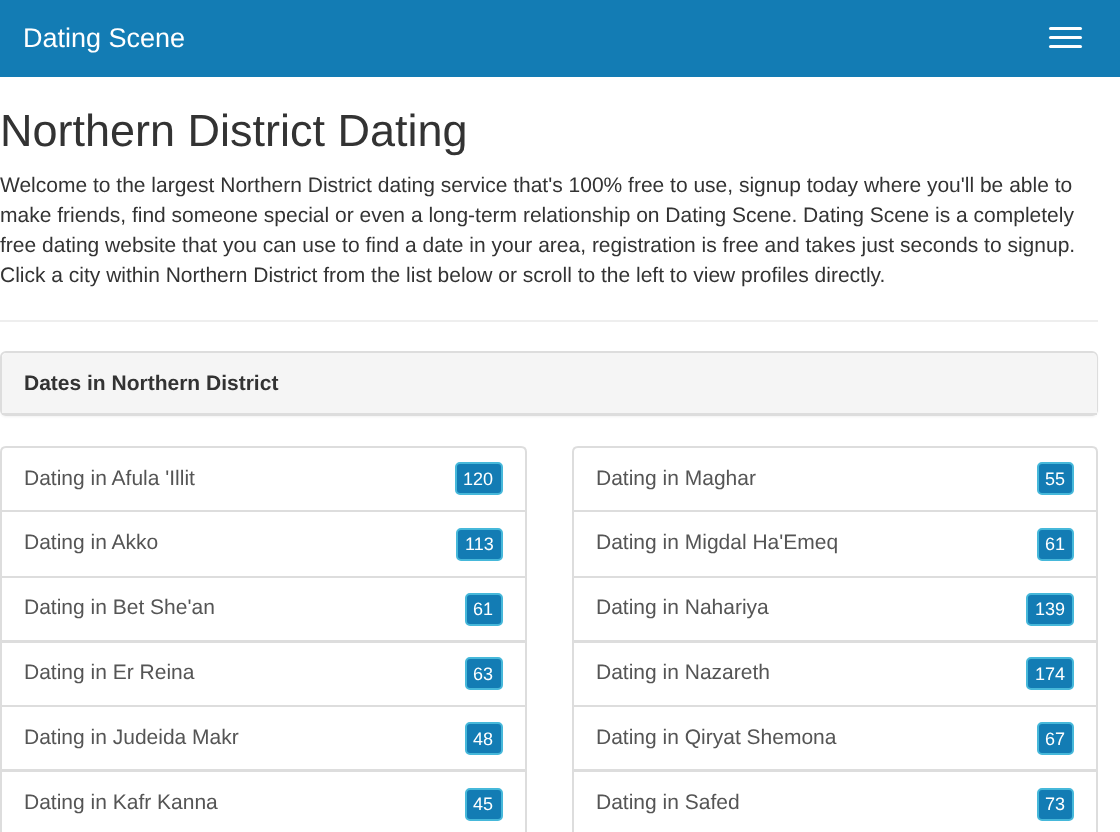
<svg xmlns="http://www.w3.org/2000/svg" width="1120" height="832">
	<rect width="100%" height="100%" fill="#FFFFFF" />
	<rect x="0" y="0" width="1120" height="77" fill="#137CB4" />
	<text x="23" y="47" font-family="Liberation Sans" font-size="27" fill="#FFFFFF">Dating Scene</text>
	<rect x="1049" y="27" width="33" height="3" rx="1.5" fill="#FFFFFF" />
	<rect x="1049" y="36" width="33" height="3" rx="1.5" fill="#FFFFFF" />
	<rect x="1049" y="45" width="33" height="3" rx="1.5" fill="#FFFFFF" />
	<text x="0" y="146" font-family="Liberation Sans" font-size="45" fill="#333333">Northern District Dating</text>
	<g font-family="Liberation Sans" font-size="21" fill="#333333">
		<text x="0" y="192">Welcome to the largest Northern District dating service that's 100% free to use, signup today where you'll be able to</text>
		<text x="0" y="222">make friends, find someone special or even a long-term relationship on Dating Scene. Dating Scene is a completely</text>
		<text x="0" y="252">free dating website that you can use to find a date in your area, registration is free and takes just seconds to signup.</text>
		<text x="0" y="282">Click a city within Northern District from the list below or scroll to the left to view profiles directly.</text>
	</g>
	<rect x="0" y="320" width="1098" height="2" fill="#EEEEEE" />
	<rect x="0" y="353" width="1098" height="64" rx="6" fill="#000000" fill-opacity="0.05" filter="blur(1px)" />
	<rect x="1" y="352" width="1096" height="63" rx="5" fill="#FFFFFF" stroke="#DDDDDD" stroke-width="2" />
	<path d="M7 353H1092C1095 353 1097 355 1097 358V414H2V358C2 355 4 353 7 353Z" fill="#F5F5F5" />
	<rect x="2" y="413" width="1095" height="2" fill="#DDDDDD" />
	<text x="24" y="390" font-family="Liberation Sans" font-size="21" font-weight="700" fill="#333333">Dates in Northern District</text>
	<path d="M6 447H521C524 447 526 449 526 452V511H1V452C1 449 3 447 6 447Z" fill="none" stroke="#DDDDDD" stroke-width="2" />
	<text x="24" y="485" font-family="Liberation Sans" font-size="21" fill="#555555">Dating in Afula 'Illit</text>
	<rect x="456" y="463" width="46" height="31" rx="4" fill="#137CB4" stroke="#46B8DA" stroke-width="2" />
	<text x="463" y="485" font-family="Liberation Sans" font-size="18" fill="#FFFFFF">120</text>
	<rect x="1" y="511" width="525" height="66" fill="none" stroke="#DDDDDD" stroke-width="2" />
	<text x="24" y="549" font-family="Liberation Sans" font-size="21" fill="#555555">Dating in Akko</text>
	<rect x="457" y="529" width="45" height="31" rx="4" fill="#137CB4" stroke="#46B8DA" stroke-width="2" />
	<text x="465" y="550" font-family="Liberation Sans" font-size="18" fill="#FFFFFF">113</text>
	<rect x="1" y="577" width="525" height="64" fill="none" stroke="#DDDDDD" stroke-width="2" />
	<text x="24" y="614" font-family="Liberation Sans" font-size="21" fill="#555555">Dating in Bet She'an</text>
	<rect x="466" y="594" width="36" height="31" rx="4" fill="#137CB4" stroke="#46B8DA" stroke-width="2" />
	<text x="473" y="615" font-family="Liberation Sans" font-size="18" fill="#FFFFFF">61</text>
	<rect x="1" y="642" width="525" height="64" fill="none" stroke="#DDDDDD" stroke-width="2" />
	<text x="24" y="679" font-family="Liberation Sans" font-size="21" fill="#555555">Dating in Er Reina</text>
	<rect x="466" y="658" width="36" height="31" rx="4" fill="#137CB4" stroke="#46B8DA" stroke-width="2" />
	<text x="473" y="680" font-family="Liberation Sans" font-size="18" fill="#FFFFFF">63</text>
	<rect x="1" y="706" width="525" height="64" fill="none" stroke="#DDDDDD" stroke-width="2" />
	<text x="24" y="744" font-family="Liberation Sans" font-size="21" fill="#555555">Dating in Judeida Makr</text>
	<rect x="466" y="723" width="36" height="31" rx="4" fill="#137CB4" stroke="#46B8DA" stroke-width="2" />
	<text x="473" y="745" font-family="Liberation Sans" font-size="18" fill="#FFFFFF">48</text>
	<rect x="1" y="771" width="525" height="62" fill="none" stroke="#DDDDDD" stroke-width="2" />
	<text x="24" y="809" font-family="Liberation Sans" font-size="21" fill="#555555">Dating in Kafr Kanna</text>
	<rect x="466" y="789" width="36" height="31" rx="4" fill="#137CB4" stroke="#46B8DA" stroke-width="2" />
	<text x="473" y="810" font-family="Liberation Sans" font-size="18" fill="#FFFFFF">45</text>
	<path d="M578 447H1092C1095 447 1097 449 1097 452V511H573V452C573 449 575 447 578 447Z" fill="none" stroke="#DDDDDD" stroke-width="2" />
	<text x="596" y="485" font-family="Liberation Sans" font-size="21" fill="#555555">Dating in Maghar</text>
	<rect x="1038" y="463" width="35" height="31" rx="4" fill="#137CB4" stroke="#46B8DA" stroke-width="2" />
	<text x="1045" y="485" font-family="Liberation Sans" font-size="18" fill="#FFFFFF">55</text>
	<rect x="573" y="511" width="524" height="66" fill="none" stroke="#DDDDDD" stroke-width="2" />
	<text x="596" y="549" font-family="Liberation Sans" font-size="21" fill="#555555">Dating in Migdal Ha'Emeq</text>
	<rect x="1038" y="529" width="35" height="31" rx="4" fill="#137CB4" stroke="#46B8DA" stroke-width="2" />
	<text x="1045" y="550" font-family="Liberation Sans" font-size="18" fill="#FFFFFF">61</text>
	<rect x="573" y="577" width="524" height="64" fill="none" stroke="#DDDDDD" stroke-width="2" />
	<text x="596" y="614" font-family="Liberation Sans" font-size="21" fill="#555555">Dating in Nahariya</text>
	<rect x="1027" y="594" width="46" height="31" rx="4" fill="#137CB4" stroke="#46B8DA" stroke-width="2" />
	<text x="1035" y="615" font-family="Liberation Sans" font-size="18" fill="#FFFFFF">139</text>
	<rect x="573" y="642" width="524" height="64" fill="none" stroke="#DDDDDD" stroke-width="2" />
	<text x="596" y="679" font-family="Liberation Sans" font-size="21" fill="#555555">Dating in Nazareth</text>
	<rect x="1027" y="658" width="46" height="31" rx="4" fill="#137CB4" stroke="#46B8DA" stroke-width="2" />
	<text x="1035" y="680" font-family="Liberation Sans" font-size="18" fill="#FFFFFF">174</text>
	<rect x="573" y="706" width="524" height="64" fill="none" stroke="#DDDDDD" stroke-width="2" />
	<text x="596" y="744" font-family="Liberation Sans" font-size="21" fill="#555555">Dating in Qiryat Shemona</text>
	<rect x="1038" y="723" width="35" height="31" rx="4" fill="#137CB4" stroke="#46B8DA" stroke-width="2" />
	<text x="1045" y="745" font-family="Liberation Sans" font-size="18" fill="#FFFFFF">67</text>
	<rect x="573" y="771" width="524" height="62" fill="none" stroke="#DDDDDD" stroke-width="2" />
	<text x="596" y="809" font-family="Liberation Sans" font-size="21" fill="#555555">Dating in Safed</text>
	<rect x="1038" y="789" width="35" height="31" rx="4" fill="#137CB4" stroke="#46B8DA" stroke-width="2" />
	<text x="1045" y="810" font-family="Liberation Sans" font-size="18" fill="#FFFFFF">73</text>
</svg>
